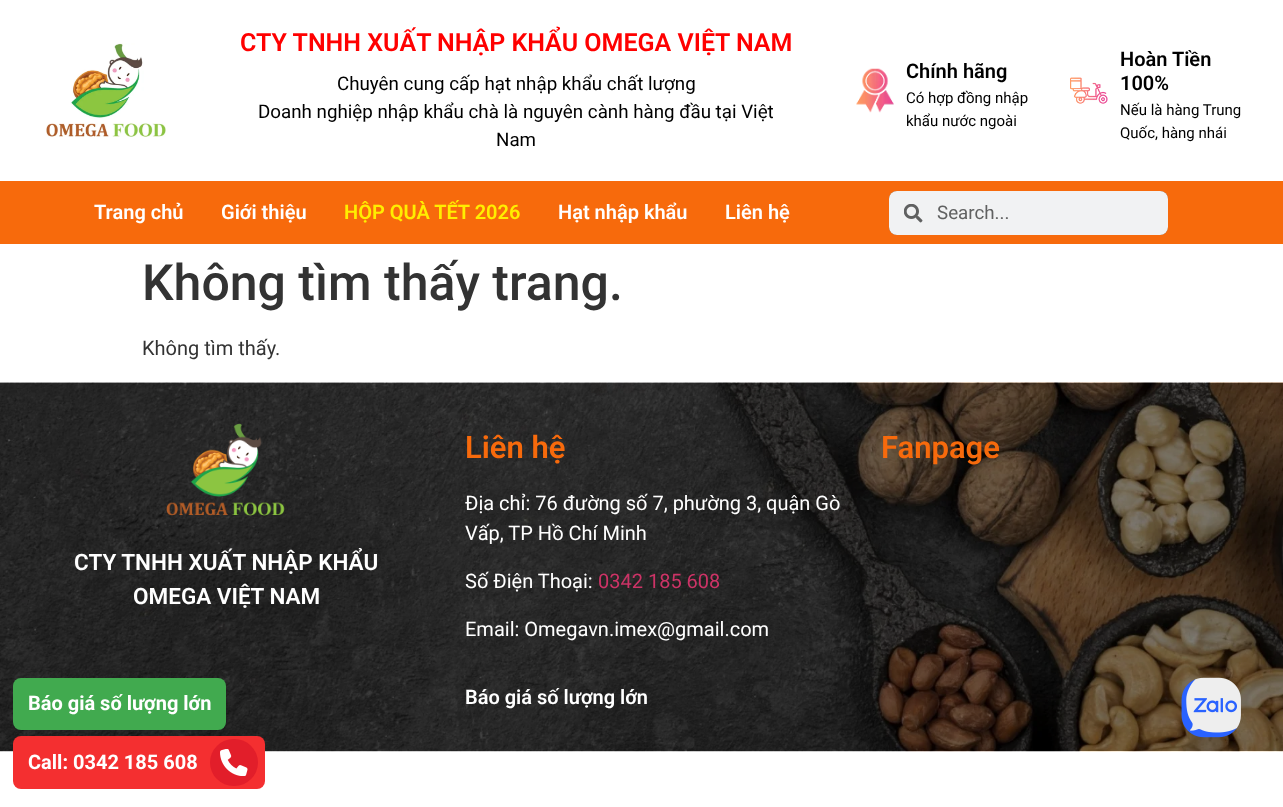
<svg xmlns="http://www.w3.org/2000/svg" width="1283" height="807">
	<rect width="100%" height="100%" fill="#FFFFFF" />
	<image x="46" y="43" width="120" height="94" href="assets/img1.png" />
	<text x="240" y="51" font-family="Roboto" font-size="25" font-weight="600" fill="#FF0000">CTY TNHH XUẤT NHẬP KHẨU OMEGA VIỆT NAM</text>
	<g font-family="Roboto" font-size="18.75" fill="#000000">
		<text x="337" y="90">Chuyên cung cấp hạt nhập khẩu chất lượng</text>
		<text x="258" y="118">Doanh nghiệp nhập khẩu chà là nguyên cành hàng đầu tại Việt</text>
		<text x="496" y="146">Nam</text>
	</g>
	<image x="856" y="68" width="38" height="45" href="assets/img2.png" />
	<text x="906" y="78" font-family="Roboto" font-size="20" font-weight="600" fill="#000000">Chính hãng</text>
	<g font-family="Roboto" font-size="15" fill="#000000">
		<text x="906" y="103">Có hợp đồng nhập</text>
		<text x="906" y="126">khẩu nước ngoài</text>
	</g>
	<image x="1070" y="77" width="38" height="27" href="assets/img3.png" />
	<g font-family="Roboto" font-size="20" font-weight="600" fill="#000000">
		<text x="1120" y="66">Hoàn Tiền</text>
		<text x="1120" y="90">100%</text>
	</g>
	<g font-family="Roboto" font-size="15" fill="#000000">
		<text x="1120" y="115">Nếu là hàng Trung</text>
		<text x="1120" y="138">Quốc, hàng nhái</text>
	</g>
	<rect x="0" y="181" width="1283" height="63" fill="#F76A0C" />
	<g font-family="Roboto" font-size="20" font-weight="600" fill="#FFFFFF">
		<text x="94" y="219">Trang chủ</text>
		<text x="221" y="219">Giới thiệu</text>
	</g>
	<text x="344" y="219" font-family="Roboto" font-size="20" font-weight="600" fill="#FFEE00">HỘP QUÀ TẾT 2026</text>
	<g font-family="Roboto" font-size="20" font-weight="600" fill="#FFFFFF">
		<text x="558" y="219">Hạt nhập khẩu</text>
		<text x="725" y="219">Liên hệ</text>
	</g>
	<rect x="889" y="191" width="279" height="44" rx="8" fill="#000000" fill-opacity="0.5" filter="blur(0.5px)" />
	<rect x="889" y="191" width="279" height="44" rx="8" fill="#F1F2F3" />
	<image x="904" y="204" width="19" height="19" href="assets/img4.png" />
	<text x="937" y="219" font-family="Roboto" font-size="18.75" fill="#606161">Search...</text>
	<text x="142" y="300" font-family="Roboto" font-size="50" font-weight="500" fill="#333333">Không tìm thấy trang.</text>
	<text x="142" y="355" font-family="Roboto" font-size="20" fill="#333333">Không tìm thấy.</text>
	<image x="0" y="382" width="1283" height="370" href="assets/img5.png" />
	<text x="465" y="458" font-family="Roboto" font-size="31" font-weight="600" fill="#F76A0C">Liên hệ</text>
	<g font-family="Roboto" font-size="20" fill="#FFFFFF">
		<text x="465" y="510">Địa chỉ: 76 đường số 7, phường 3, quận Gò</text>
		<text x="465" y="540">Vấp, TP Hồ Chí Minh</text>
		<text x="465" y="588">Số Điện Thoại:</text>
	</g>
	<text x="598" y="588" font-family="Roboto" font-size="20" fill="#CC3366">0342 185 608</text>
	<text x="465" y="636" font-family="Roboto" font-size="20" fill="#FFFFFF">Email: Omegavn.imex@gmail.com</text>
	<text x="465" y="704" font-family="Roboto" font-size="20" font-weight="600" fill="#FFFFFF">Báo giá số lượng lớn</text>
	<text x="881" y="458" font-family="Roboto" font-size="31" font-weight="600" fill="#F76A0C">Fanpage</text>
	<image x="166" y="423" width="119" height="93" href="assets/img6.png" />
	<g font-family="Roboto" font-size="22.5" font-weight="600" fill="#FFFFFF">
		<text x="74" y="570">CTY TNHH XUẤT NHẬP KHẨU</text>
		<text x="133" y="604">OMEGA VIỆT NAM</text>
	</g>
	<image x="1181" y="677" width="60" height="61" href="assets/img7.png" />
	<rect x="13" y="678" width="213" height="52" rx="8" fill="#41AA4F" />
	<text x="28" y="710" font-family="Roboto" font-size="20" font-weight="700" fill="#FFFFFF">Báo giá số lượng lớn</text>
	<rect x="13" y="736" width="252" height="53" rx="8" fill="#F42F30" />
	<text x="28" y="769" font-family="Roboto" font-size="20" font-weight="700" fill="#FFFFFF">Call: 0342 185 608</text>
	<rect x="210" y="739" width="48" height="47" rx="23.5" fill="#E21E2A" />
	<image x="220" y="749" width="28" height="27" href="assets/img8.png" />
</svg>
